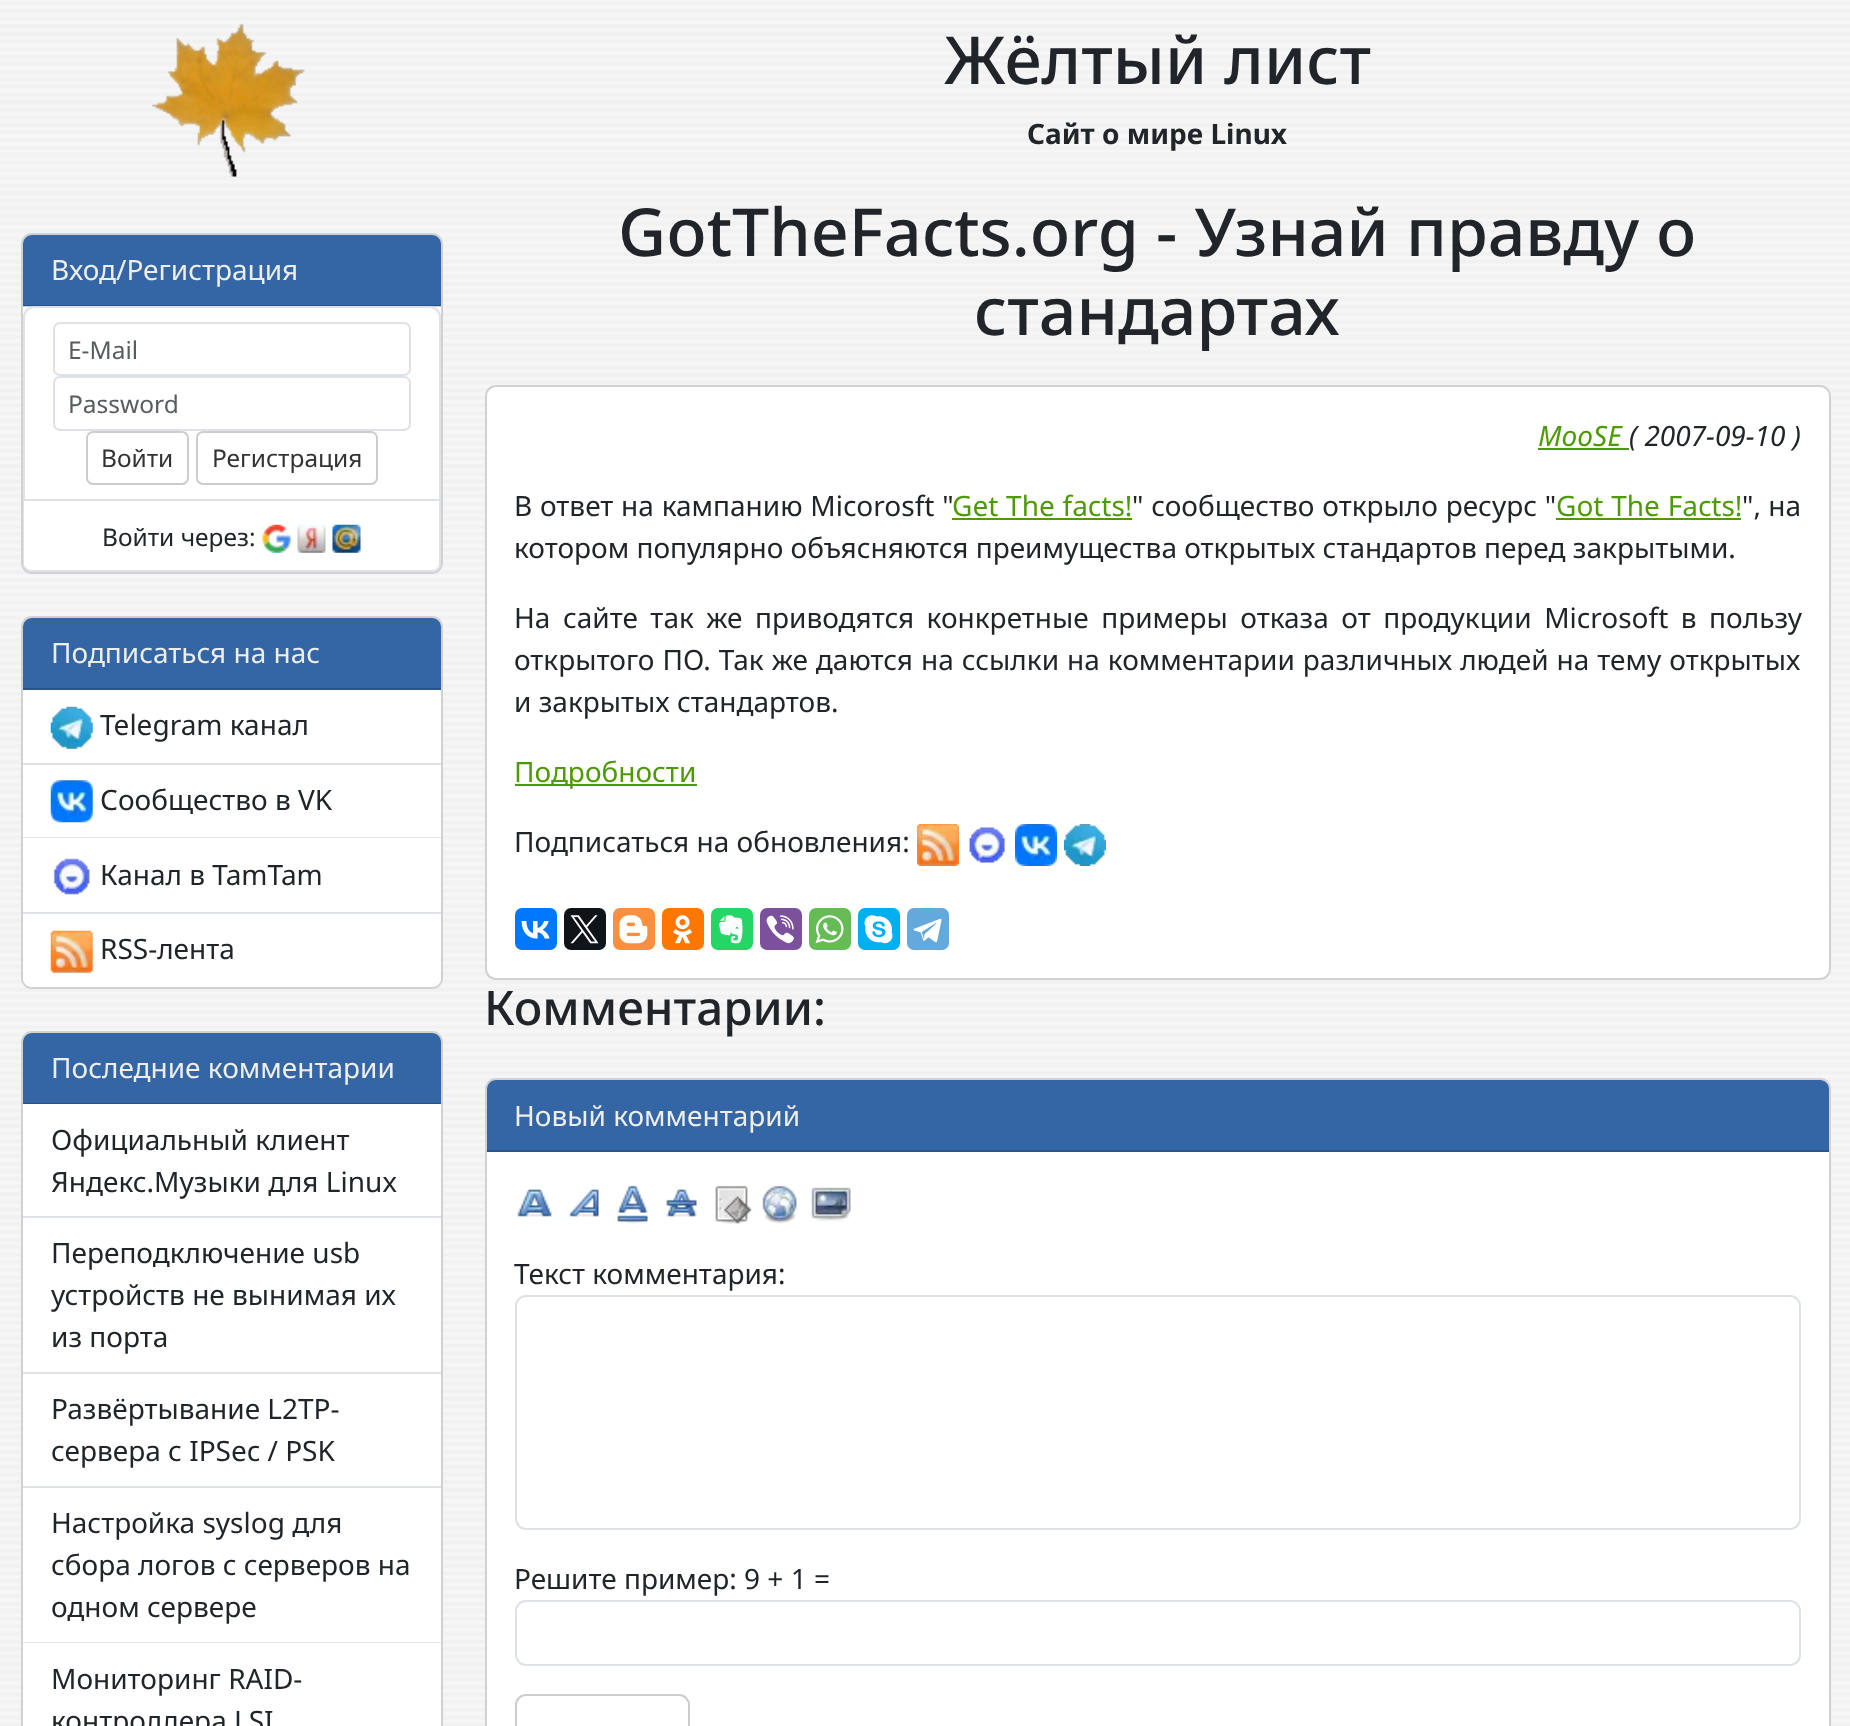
<svg xmlns="http://www.w3.org/2000/svg" width="1850" height="1726">
	<rect width="100%" height="100%" fill="#FFFFFF" />
	<image x="0" y="0" width="1850" height="1726" href="assets/img1.png" />
	<image x="152" y="23" width="153" height="154" href="assets/img2.png" />
	<text x="944" y="84" font-family="Noto Sans" font-size="66.25" font-weight="500" fill="#212529">Жёлтый лист</text>
	<text x="1027" y="144" font-family="Noto Sans" font-size="28" font-weight="700" fill="#212529">Сайт о мире Linux</text>
	<rect x="21" y="233" width="422" height="341" rx="11" fill="#FFFFFF" />
	<rect x="22" y="234" width="420" height="339" rx="10" fill="none" stroke="#000000" stroke-opacity="0.18" stroke-width="2" />
	<path d="M32 235H432C437 235 441 239 441 244V306H23V244C23 239 27 235 32 235Z" fill="#3465A4" />
	<rect x="23" y="305" width="418" height="2" fill="#000000" fill-opacity="0.18" />
	<text x="51" y="280" font-family="Noto Sans" font-size="28" fill="#EEEEEC">Вход/Регистрация</text>
	<path d="M34 307H430C435.5 307 440 311.5 440 317V500H24V317C24 311.5 28.5 307 34 307Z" fill="#FFFFFF" stroke="#DEE2E6" stroke-width="2" />
	<rect x="54" y="323" width="356" height="52" rx="6" fill="none" stroke="#DEE2E6" stroke-width="2" />
	<text x="68" y="359" font-family="Noto Sans" font-size="24.5" fill="#595C5F">E-Mail</text>
	<rect x="54" y="377" width="356" height="53" rx="6" fill="none" stroke="#DEE2E6" stroke-width="2" />
	<text x="68" y="413" font-family="Noto Sans" font-size="24.5" fill="#595C5F">Password</text>
	<rect x="87" y="432" width="101" height="52" rx="6" fill="none" stroke="#CCCCCC" stroke-width="2" />
	<text x="101" y="467" font-family="Noto Sans" font-size="24.5" fill="#333333">Войти</text>
	<rect x="197" y="432" width="180" height="52" rx="6" fill="none" stroke="#CCCCCC" stroke-width="2" />
	<text x="212" y="467" font-family="Noto Sans" font-size="24.5" fill="#333333">Регистрация</text>
	<path d="M23 500H441V564C441 568 437 572 432 572H32C27 572 23 568 23 564ZM24 500H439V564C439 567 436 570 432 570H32C28 570 24 567 24 564Z" fill="#DEE2E6" fill-rule="evenodd" />
	<text x="102" y="546" font-family="Noto Sans" font-size="24.5" fill="#212529">Войти через:</text>
	<image x="262" y="524" width="29" height="29" href="assets/img3.png" />
	<image x="297" y="524" width="29" height="29" href="assets/img4.png" />
	<image x="332" y="524" width="29" height="29" href="assets/img5.png" />
	<rect x="21" y="616" width="422" height="373" rx="11" fill="#FFFFFF" />
	<rect x="22" y="617" width="420" height="371" rx="10" fill="none" stroke="#000000" stroke-opacity="0.18" stroke-width="2" />
	<path d="M32 618H432C437 618 441 622 441 627V690H23V627C23 622 27 618 32 618Z" fill="#3465A4" />
	<rect x="23" y="688" width="418" height="2" fill="#2B5387" />
	<text x="51" y="663" font-family="Noto Sans" font-size="28" fill="#EEEEEC">Подписаться на нас</text>
	<rect x="23" y="763" width="418" height="2" fill="#DEE2E6" />
	<image x="50" y="706" width="43" height="43" href="assets/img6.png" />
	<text x="100" y="735" font-family="Noto Sans" font-size="28" fill="#212529">Telegram канал</text>
	<rect x="23" y="837" width="418" height="1" fill="#DEE2E6" />
	<image x="50" y="780" width="43" height="43" href="assets/img7.png" />
	<text x="100" y="810" font-family="Noto Sans" font-size="28" fill="#212529">Сообщество в VK</text>
	<rect x="23" y="912" width="418" height="2" fill="#DEE2E6" />
	<image x="53" y="858" width="37" height="37" href="assets/img8.png" />
	<text x="100" y="885" font-family="Noto Sans" font-size="28" fill="#212529">Канал в TamTam</text>
	<path d="M23 914H441V978C441 983 437 987 432 987H32C27 987 23 983 23 978Z" fill="#FFFFFF" />
	<image x="50" y="930" width="43" height="43" href="assets/img9.png" />
	<text x="100" y="959" font-family="Noto Sans" font-size="28" fill="#212529">RSS-лента</text>
	<rect x="21" y="1031" width="422" height="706" rx="11" fill="#FFFFFF" />
	<rect x="22" y="1032" width="420" height="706" rx="10" fill="none" stroke="#000000" stroke-opacity="0.18" stroke-width="2" />
	<path d="M32 1033H432C437 1033 441 1037 441 1042V1104H23V1042C23 1037 27 1033 32 1033Z" fill="#3465A4" />
	<rect x="23" y="1103" width="418" height="1" fill="#000000" fill-opacity="0.18" />
	<text x="51" y="1078" font-family="Noto Sans" font-size="28" fill="#EEEEEC">Последние комментарии</text>
	<rect x="23" y="1216" width="418" height="2" fill="#DEE2E6" />
	<g font-family="Noto Sans" font-size="28" fill="#212529">
		<text x="51" y="1150">Официальный клиент</text>
		<text x="51" y="1192">Яндекс.Музыки для Linux</text>
	</g>
	<rect x="23" y="1372" width="418" height="2" fill="#DEE2E6" />
	<g font-family="Noto Sans" font-size="28" fill="#212529">
		<text x="51" y="1263">Переподключение usb</text>
		<text x="51" y="1305">устройств не вынимая их</text>
		<text x="51" y="1347">из порта</text>
	</g>
	<rect x="23" y="1486" width="418" height="2" fill="#DEE2E6" />
	<g font-family="Noto Sans" font-size="28" fill="#212529">
		<text x="51" y="1419">Развёртывание L2TP-</text>
		<text x="51" y="1461">сервера с IPSec / PSK</text>
	</g>
	<rect x="23" y="1642" width="418" height="1" fill="#DEE2E6" />
	<g font-family="Noto Sans" font-size="28" fill="#212529">
		<text x="51" y="1533">Настройка syslog для</text>
		<text x="51" y="1575">сбора логов с серверов на</text>
		<text x="51" y="1617">одном сервере</text>
		<text x="51" y="1689">Мониторинг RAID-</text>
		<text x="51" y="1731">контроллера LSI</text>
	</g>
	<g font-family="Noto Sans" font-size="66.25" font-weight="500" fill="#212529">
		<text x="618" y="256">GotTheFacts.org - Узнай правду о</text>
		<text x="974" y="335">стандартах</text>
	</g>
	<rect x="485" y="385" width="1346" height="595" rx="11" fill="#FFFFFF" />
	<rect x="486" y="386" width="1344" height="593" rx="10" fill="none" stroke="#000000" stroke-opacity="0.18" stroke-width="2" />
	<text x="1538" y="446" font-family="Noto Sans" font-size="28" font-style="italic" fill="#4E9A06">MooSE</text>
	<text x="1629" y="446" font-family="Noto Sans" font-size="28" font-style="italic" fill="#212529">( 2007-09-10 )</text>
	<rect x="1538" y="448" width="91" height="2" fill="#4E9A06" />
	<text x="514" y="516" word-spacing="0.5" font-family="Noto Sans" font-size="28" fill="#212529">В ответ на кампанию Micorosft "</text>
	<text x="952" y="516" word-spacing="0.5" font-family="Noto Sans" font-size="28" fill="#4E9A06">Get The facts!</text>
	<rect x="952" y="518" width="180" height="2" fill="#4E9A06" />
	<text x="1132" y="516" word-spacing="0.5" font-family="Noto Sans" font-size="28" fill="#212529">" сообщество открыло ресурс "</text>
	<text x="1556" y="516" word-spacing="0.5" font-family="Noto Sans" font-size="28" fill="#4E9A06">Got The Facts!</text>
	<rect x="1556" y="518" width="185" height="2" fill="#4E9A06" />
	<g font-family="Noto Sans" font-size="28" fill="#212529">
		<text x="1742" y="516">", на</text>
		<text x="514" y="558">котором популярно объясняются преимущества открытых стандартов перед закрытыми.</text>
		<text x="514" y="628" word-spacing="5.25">На сайте так же приводятся конкретные примеры отказа от продукции Microsoft в пользу</text>
		<text x="514" y="670" word-spacing="0.75">открытого ПО. Так же даются на ссылки на комментарии различных людей на тему открытых</text>
		<text x="514" y="712">и закрытых стандартов.</text>
	</g>
	<rect x="515" y="784" width="182" height="2" fill="#4E9A06" />
	<text x="514" y="782" font-family="Noto Sans" font-size="28" fill="#4E9A06">Подробности</text>
	<text x="514" y="852" font-family="Noto Sans" font-size="28" fill="#212529">Подписаться на обновления:</text>
	<image x="917" y="824" width="42" height="42" href="assets/img10.png" />
	<image x="969" y="827" width="36" height="36" href="assets/img11.png" />
	<image x="1015" y="824" width="42" height="42" href="assets/img12.png" />
	<image x="1064" y="824" width="42" height="42" href="assets/img13.png" />
	<rect x="515" y="908" width="42" height="42" rx="7" fill="#0077FF" />
	<image x="521" y="921" width="29" height="18" href="assets/img14.png" />
	<rect x="564" y="908" width="42" height="42" rx="7" fill="#0F1419" />
	<image x="570" y="915" width="29" height="29" href="assets/img15.png" />
	<rect x="613" y="908" width="42" height="42" rx="7" fill="#FB8F3D" />
	<image x="619" y="915" width="29" height="29" href="assets/img16.png" />
	<rect x="662" y="908" width="42" height="42" rx="7" fill="#FF7700" />
	<image x="673" y="915" width="19" height="29" href="assets/img17.png" />
	<rect x="711" y="908" width="42" height="42" rx="7" fill="#24D666" />
	<image x="719" y="915" width="24" height="29" href="assets/img18.png" />
	<rect x="760" y="908" width="42" height="42" rx="7" fill="#7B519D" />
	<image x="766" y="915" width="28" height="29" href="assets/img19.png" />
	<rect x="809" y="908" width="42" height="42" rx="7" fill="#65BC54" />
	<image x="815" y="915" width="29" height="29" href="assets/img20.png" />
	<rect x="858" y="908" width="42" height="42" rx="7" fill="#00AFF0" />
	<image x="864" y="915" width="29" height="29" href="assets/img21.png" />
	<rect x="907" y="908" width="42" height="42" rx="7" fill="#64A9DC" />
	<image x="913" y="918" width="29" height="25" href="assets/img22.png" />
	<text x="484" y="1025" font-family="Noto Sans" font-size="47.5" font-weight="500" fill="#212529">Комментарии:</text>
	<rect x="485" y="1078" width="1346" height="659" rx="11" fill="#FFFFFF" />
	<rect x="486" y="1079" width="1344" height="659" rx="10" fill="none" stroke="#000000" stroke-opacity="0.18" stroke-width="2" />
	<path d="M496 1080H1820C1825 1080 1829 1084 1829 1089V1152H487V1089C487 1084 491 1080 496 1080Z" fill="#3465A4" />
	<rect x="487" y="1150" width="1342" height="2" fill="#2B5387" />
	<text x="514" y="1126" font-family="Noto Sans" font-size="28" fill="#EEEEEC">Новый комментарий</text>
	<image x="517" y="1189" width="35" height="28" href="assets/img23.png" />
	<image x="568" y="1189" width="31" height="28" href="assets/img24.png" />
	<image x="617" y="1185" width="31" height="39" href="assets/img25.png" />
	<image x="666" y="1189" width="31" height="28" href="assets/img26.png" />
	<image x="715" y="1185" width="37" height="39" href="assets/img27.png" />
	<image x="762" y="1185" width="35" height="39" href="assets/img28.png" />
	<image x="811" y="1187" width="40" height="35" href="assets/img29.png" />
	<text x="514" y="1284" font-family="Noto Sans" font-size="28" fill="#212529">Текст комментария:</text>
	<rect x="516" y="1296" width="1284" height="233" rx="10" fill="none" stroke="#DEE2E6" stroke-width="2" />
	<text x="514" y="1589" font-family="Noto Sans" font-size="28" fill="#212529">Решите пример: 9 + 1 =</text>
	<rect x="516" y="1601" width="1284" height="64" rx="10" fill="none" stroke="#DEE2E6" stroke-width="2" />
	<rect x="516" y="1695" width="173" height="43" rx="10" fill="none" stroke="#CCCCCC" stroke-width="2" />
</svg>
